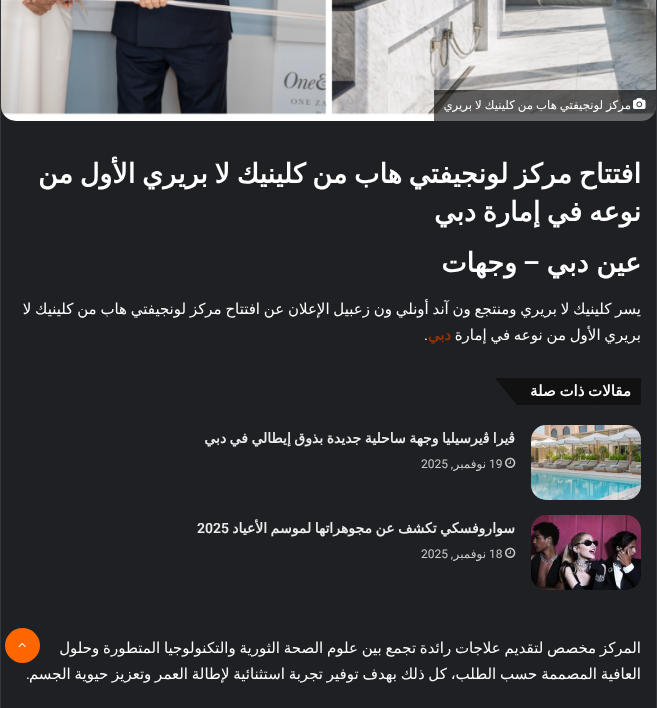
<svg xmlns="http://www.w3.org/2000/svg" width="657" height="708">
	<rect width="100%" height="100%" fill="#1F2024" />
	<rect x="0.5" y="-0.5" width="656" height="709" fill="none" stroke="#35363A" />
	<image x="1" y="0" width="655" height="121" href="assets/img1.png" />
	<path d="M434 90H656V106C656 114.5 649.5 121 641 121H434Z" fill="#000000" fill-opacity="0.6" />
	<image x="633" y="98" width="13" height="11" href="assets/img2.png" />
	<text x="631" y="109" word-spacing="-0.75" font-family="DejaVu Sans" font-size="11.75" direction="rtl" fill="#FFFFFF">مركز لونجيفتي هاب من كلينيك لا بريري</text>
	<g font-family="DejaVu Sans" font-size="27" font-weight="700" direction="rtl" fill="#FFFFFF">
		<text x="641" y="183" word-spacing="-1.9">افتتاح مركز لونجيفتي هاب من كلينيك لا بريري الأول من</text>
		<text x="641" y="221" word-spacing="-1.9">نوعه في إمارة دبي</text>
		<text x="641" y="272" word-spacing="-1">عين دبي</text>
	</g>
	<text x="540" y="272" font-family="Roboto" font-size="27" font-weight="600" direction="rtl" fill="#FFFFFF">–</text>
	<text x="517" y="272" font-family="DejaVu Sans" font-size="27" font-weight="700" direction="rtl" fill="#FFFFFF">وجهات</text>
	<g font-family="DejaVu Sans" font-size="15" direction="rtl" fill="#FFFFFF">
		<text x="641" y="314" word-spacing="-1">يسر كلينيك لا بريري ومنتجع ون آند أونلي ون زعبيل الإعلان عن افتتاح مركز لونجيفتي هاب من كلينيك لا</text>
		<text x="641" y="340" word-spacing="-1">بريري الأول من نوعه في إمارة</text>
	</g>
	<text x="451" y="340" font-family="DejaVu Sans" font-size="15" font-weight="700" direction="rtl" fill="#993300">دبي</text>
	<text x="424" y="340" font-family="Roboto" font-size="15" fill="#FFFFFF">.</text>
	<rect x="579" y="378" width="62" height="27" fill="#111111" />
	<path d="M495 378H579L602 405H517Z" fill="#111111" />
	<text x="631" y="396" word-spacing="-1" font-family="DejaVu Sans" font-size="15" font-weight="700" direction="rtl" fill="#FFFFFF">مقالات ذات صلة</text>
	<image x="531" y="425" width="110" height="75" href="assets/img3.png" />
	<text x="515" y="443" word-spacing="-1" font-family="DejaVu Sans" font-size="14" font-weight="700" direction="rtl" fill="#ECECEC">ﭬيرا ﭬيرسيليا وجهة ساحلية جديدة بذوق إيطالي في دبي</text>
	<image x="505" y="457" width="11" height="11" href="assets/img4.png" />
	<text x="489" y="468" font-family="Roboto" font-size="12" fill="#CACACA">19</text>
	<text x="453" y="468" font-family="Roboto" font-size="12" direction="rtl" fill="#CACACA">,</text>
	<text x="486" y="468" font-family="DejaVu Sans" font-size="12" direction="rtl" fill="#CACACA">نوفمبر</text>
	<text x="421" y="468" font-family="Roboto" font-size="12" fill="#CACACA">2025</text>
	<image x="531" y="515" width="110" height="75" href="assets/img5.png" />
	<text x="515" y="533" word-spacing="-1" font-family="DejaVu Sans" font-size="14" font-weight="700" direction="rtl" fill="#ECECEC">سواروفسكي تكشف عن مجوهراتها لموسم الأعياد</text>
	<text x="197" y="533" font-family="Roboto" font-size="14" font-weight="600" fill="#ECECEC">2025</text>
	<image x="505" y="547" width="11" height="11" href="assets/img4.png" />
	<text x="489" y="558" font-family="Roboto" font-size="12" fill="#CACACA">18</text>
	<text x="453" y="558" font-family="Roboto" font-size="12" direction="rtl" fill="#CACACA">,</text>
	<text x="486" y="558" font-family="DejaVu Sans" font-size="12" direction="rtl" fill="#CACACA">نوفمبر</text>
	<text x="421" y="558" font-family="Roboto" font-size="12" fill="#CACACA">2025</text>
	<g font-family="DejaVu Sans" font-size="15" direction="rtl" fill="#FFFFFF">
		<text x="641" y="653" word-spacing="-1">المركز مخصص لتقديم علاجات رائدة تجمع بين علوم الصحة الثورية والتكنولوجيا المتطورة وحلول</text>
		<text x="641" y="679" word-spacing="-1">العافية المصممة حسب الطلب، كل ذلك بهدف توفير تجربة استثنائية لإطالة العمر وتعزيز حيوية الجسم</text>
	</g>
	<text x="30" y="679" font-family="Roboto" font-size="15" direction="rtl" fill="#FFFFFF">.</text>
	<circle cx="22.5" cy="645.5" r="17.5" fill="#FF6600" />
	<image x="18" y="642" width="8" height="6" href="assets/img6.png" />
</svg>
